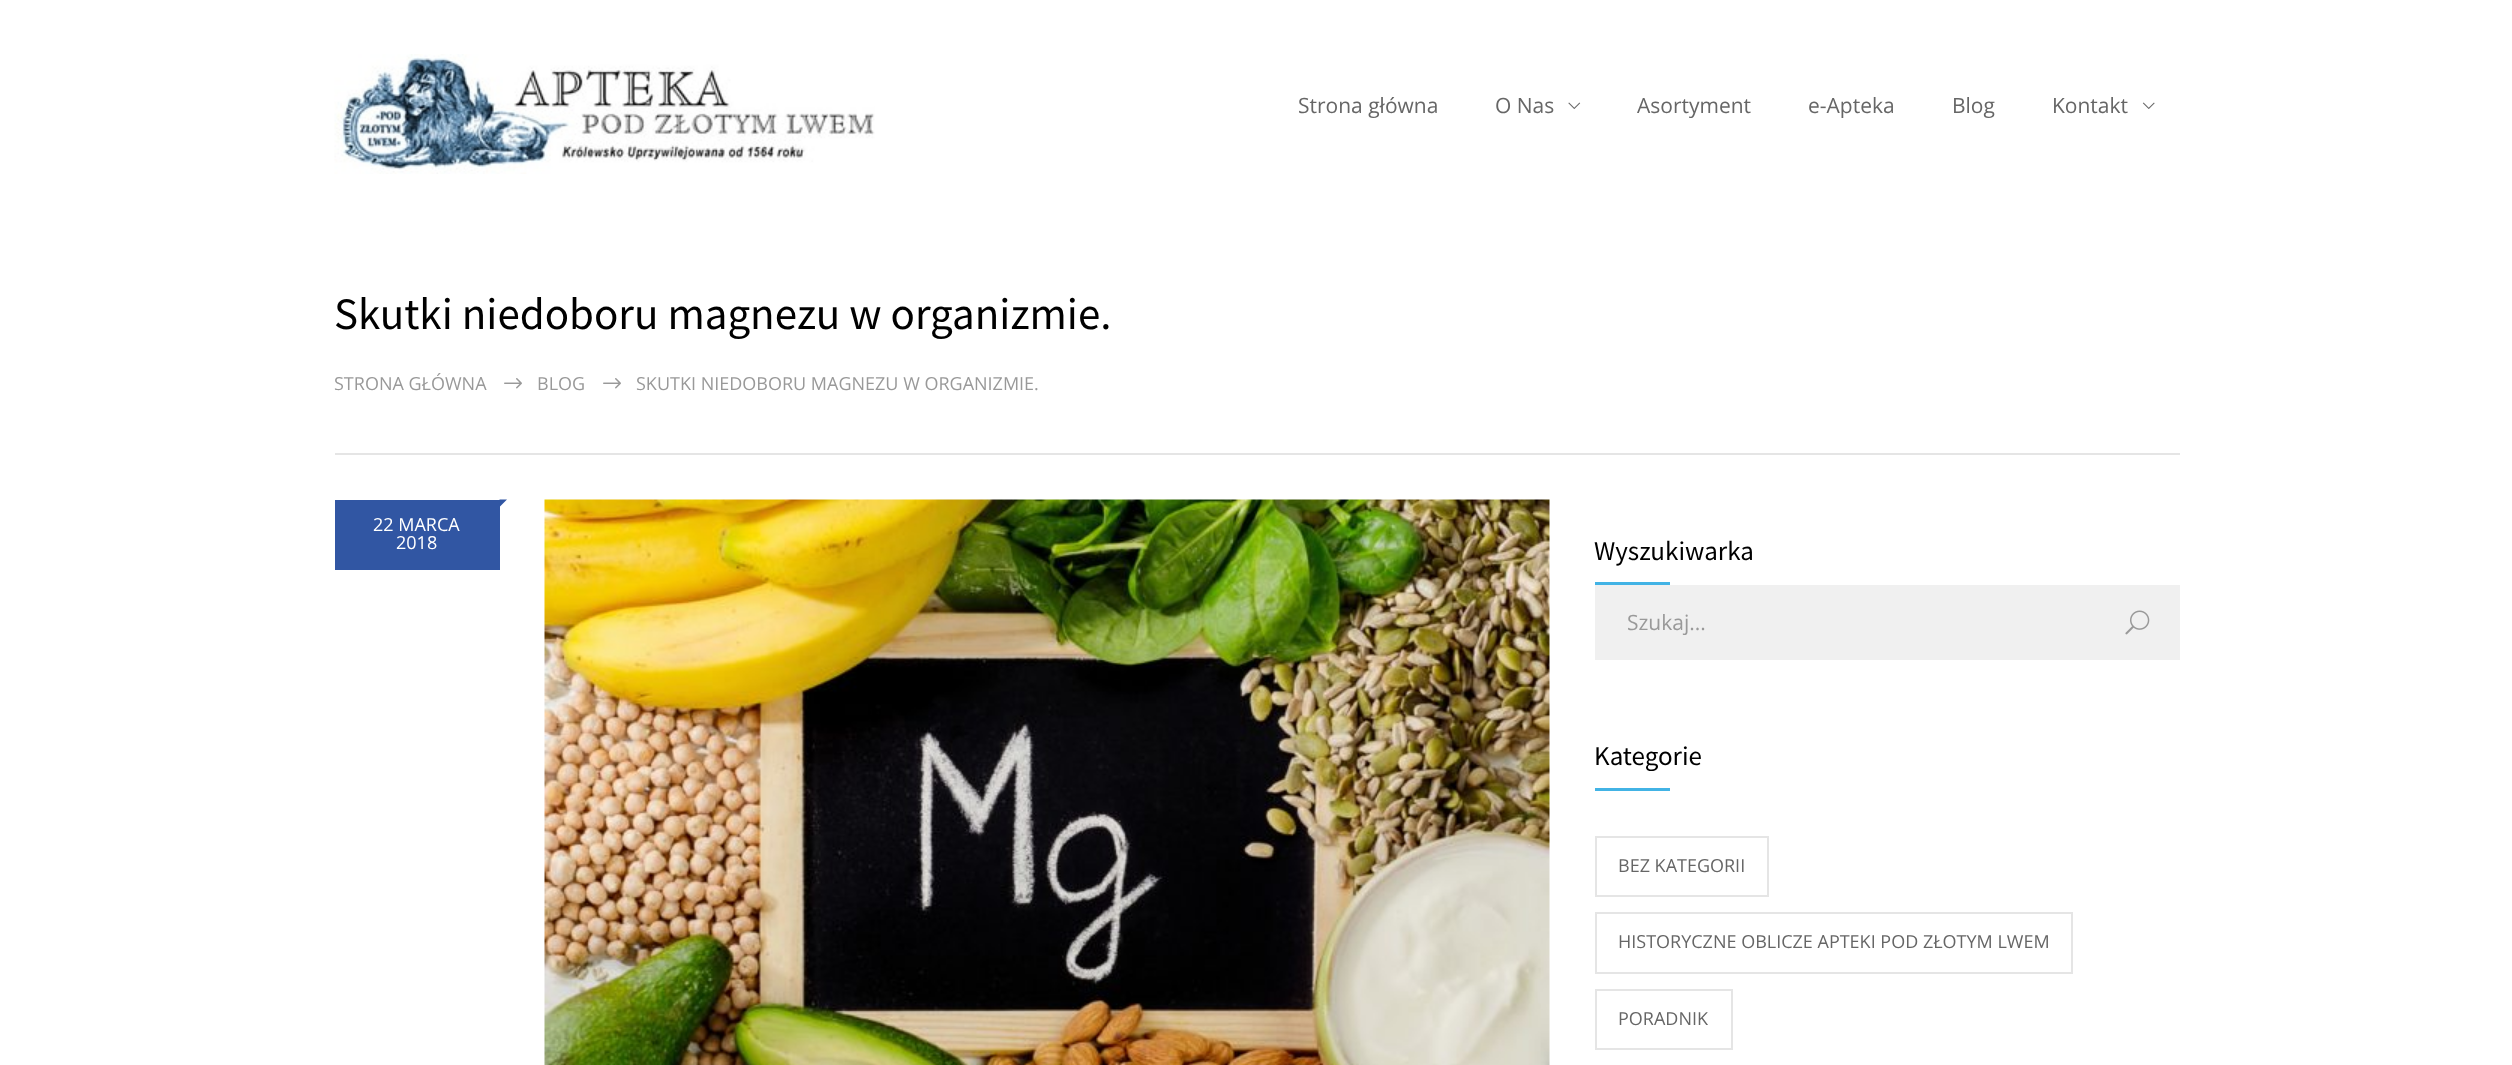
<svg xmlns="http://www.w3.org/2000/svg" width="2512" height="1065">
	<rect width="100%" height="100%" fill="#FFFFFF" />
	<image x="334" y="54" width="541" height="120" href="assets/img1.png" />
	<g font-family="Open Sans" font-size="21" fill="#666666">
		<text x="1298" y="113">Strona główna</text>
		<text x="1495" y="113">O Nas</text>
	</g>
	<image x="1568" y="102" width="13" height="7" href="assets/img2.png" />
	<g font-family="Open Sans" font-size="21" fill="#666666">
		<text x="1637" y="113">Asortyment</text>
		<text x="1808" y="113">e-Apteka</text>
		<text x="1952" y="113">Blog</text>
		<text x="2052" y="113">Kontakt</text>
	</g>
	<image x="2142" y="102" width="13" height="7" href="assets/img3.png" />
	<rect x="335" y="453" width="1845" height="2" fill="#E5E5E5" />
	<text x="334" y="329" font-family="Source Sans Pro" font-size="45" fill="#000000">Skutki niedoboru magnezu w organizmie.</text>
	<text x="334" y="390" font-family="Open Sans" font-size="18" fill="#999999">STRONA GŁÓWNA</text>
	<image x="504" y="378" width="18" height="11" href="assets/img4.png" />
	<text x="537" y="390" font-family="Open Sans" font-size="18" fill="#999999">BLOG</text>
	<image x="603" y="378" width="18" height="11" href="assets/img4.png" />
	<text x="636" y="390" font-family="Open Sans" font-size="18" fill="#999999">SKUTKI NIEDOBORU MAGNEZU W ORGANIZMIE.</text>
	<rect x="335" y="500" width="165" height="70" fill="#3156A3" />
	<path d="M499.5 499.5H507L499.5 507Z" fill="#3156A3" />
	<g font-family="Open Sans" font-size="18" fill="#FFFFFF">
		<text x="373" y="531">22 MARCA</text>
		<text x="396" y="549">2018</text>
	</g>
	<image x="544" y="499" width="1006" height="566" href="assets/img5.png" />
	<text x="1594" y="560" font-family="Source Sans Pro" font-size="27" fill="#000000">Wyszukiwarka</text>
	<rect x="1595" y="582" width="75" height="3" fill="#42B3E5" />
	<rect x="1595" y="585" width="585" height="75" fill="#F0F0F0" />
	<text x="1627" y="630" font-family="Open Sans" font-size="21" fill="#999999">Szukaj...</text>
	<image x="2125" y="610" width="25" height="25" href="assets/img6.png" />
	<text x="1594" y="765" font-family="Source Sans Pro" font-size="27" fill="#000000">Kategorie</text>
	<rect x="1595" y="788" width="75" height="3" fill="#42B3E5" />
	<rect x="1596" y="837" width="172" height="59" fill="none" stroke="#E5E5E5" stroke-width="2" />
	<text x="1618" y="872" font-family="Open Sans" font-size="18" fill="#666666">BEZ KATEGORII</text>
	<rect x="1596" y="913" width="476" height="60" fill="none" stroke="#E5E5E5" stroke-width="2" />
	<text x="1618" y="948" font-family="Open Sans" font-size="18" fill="#666666">HISTORYCZNE OBLICZE APTEKI POD ZŁOTYM LWEM</text>
	<rect x="1596" y="990" width="136" height="59" fill="none" stroke="#E5E5E5" stroke-width="2" />
	<text x="1618" y="1025" font-family="Open Sans" font-size="18" fill="#666666">PORADNIK</text>
</svg>
